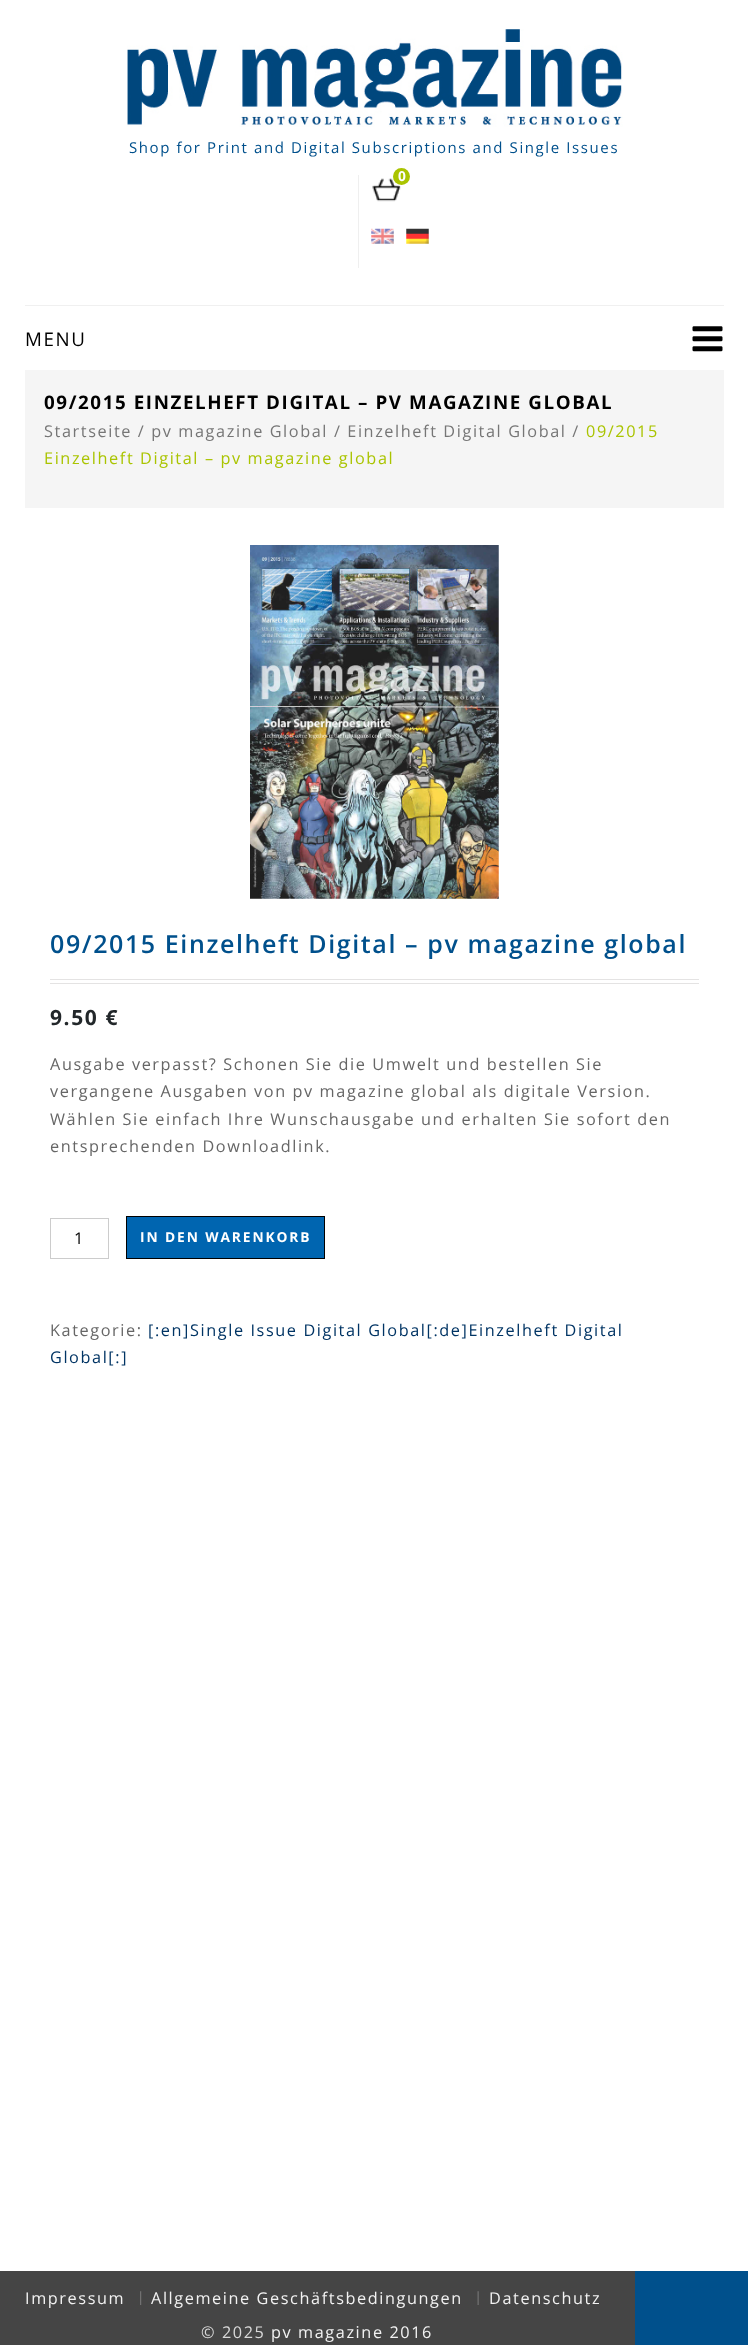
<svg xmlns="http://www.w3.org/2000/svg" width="748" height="2345">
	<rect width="100%" height="100%" fill="#FFFFFF" />
	<image x="127" y="29" width="496" height="98" href="assets/img1.png" />
	<text x="129" y="153" font-family="Open Sans" font-size="15" letter-spacing="1.6" fill="#00508C">Shop for Print and Digital Subscriptions and Single Issues</text>
	<rect x="358" y="175" width="1" height="93" fill="#EFEFEF" />
	<image x="372" y="178" width="29" height="24" href="assets/img2.png" />
	<circle cx="401.5" cy="176.5" r="8.5" fill="#AAC400" />
	<text x="398" y="181" font-family="Open Sans" font-size="13.75" font-weight="700" fill="#FFFFFF">0</text>
	<image x="371" y="228" width="23" height="16" href="assets/img3.png" />
	<image x="406" y="228" width="23" height="16" href="assets/img4.png" />
	<rect x="25" y="305" width="699" height="1" fill="#F0F0F0" />
	<text x="25" y="346" font-family="Open Sans" font-size="18.75" letter-spacing="1.6" fill="#000000">MENU</text>
	<image x="692" y="326" width="31" height="26" href="assets/img5.png" />
	<rect x="25" y="370" width="699" height="138" fill="#F5F5F5" />
	<text x="44" y="409" font-family="Open Sans" font-size="18.75" font-weight="700" letter-spacing="1.6" fill="#000000">09/2015 EINZELHEFT DIGITAL – PV MAGAZINE GLOBAL</text>
	<text x="44" y="437" font-family="Open Sans" font-size="16.25" letter-spacing="1.6" fill="#767676">Startseite / pv magazine Global / Einzelheft Digital Global /</text>
	<g font-family="Open Sans" font-size="16.25" letter-spacing="1.6" fill="#AAC400">
		<text x="586" y="437">09/2015</text>
		<text x="44" y="464">Einzelheft Digital – pv magazine global</text>
	</g>
	<image x="250" y="545" width="249" height="354" href="assets/img6.png" />
	<rect x="50" y="979" width="649" height="1" fill="#E4E3E3" />
	<rect x="50" y="983" width="649" height="1" fill="#E4E3E3" />
	<text x="50" y="953" font-family="Open Sans" font-size="25" font-weight="600" letter-spacing="1.6" fill="#00508C">09/2015 Einzelheft Digital – pv magazine global</text>
	<text x="50" y="1025" font-family="Open Sans" font-size="21" font-weight="700" letter-spacing="1.6" fill="#22272A">9.50 €</text>
	<g font-family="Open Sans" font-size="16.25" letter-spacing="1.6" fill="#666666">
		<text x="50" y="1070">Ausgabe verpasst? Schonen Sie die Umwelt und bestellen Sie</text>
		<text x="50" y="1097">vergangene Ausgaben von pv magazine global als digitale Version.</text>
		<text x="50" y="1125">Wählen Sie einfach Ihre Wunschausgabe und erhalten Sie sofort den</text>
		<text x="50" y="1152">entsprechenden Downloadlink.</text>
	</g>
	<rect x="50.5" y="1218.5" width="58" height="40" fill="none" stroke="#CCCCCC" />
	<text x="74" y="1244" font-family="Open Sans" font-size="16.25" letter-spacing="1.6" fill="#000000">1</text>
	<rect x="126.5" y="1216.5" width="198" height="42" fill="#0065B0" stroke="#000000" />
	<text x="140" y="1242" font-family="Open Sans" font-size="13.75" font-weight="700" letter-spacing="1.9" fill="#FFFFFF">IN DEN WARENKORB</text>
	<text x="50" y="1336" font-family="Open Sans" font-size="16.25" letter-spacing="1.6" fill="#666666">Kategorie:</text>
	<g font-family="Open Sans" font-size="16.25" letter-spacing="1.6" fill="#003464">
		<text x="148" y="1336">[:en]Single Issue Digital Global[:de]Einzelheft Digital</text>
		<text x="50" y="1363">Global[:]</text>
	</g>
	<rect x="635" y="2271" width="113" height="74" fill="#00508C" />
	<rect x="0" y="2271" width="635" height="74" fill="#454545" />
	<text x="25" y="2304" font-family="Open Sans" font-size="16.25" letter-spacing="1.6" fill="#F2F2F2">Impressum</text>
	<image x="140" y="2291" width="2" height="14" href="assets/img7.png" />
	<text x="151" y="2304" font-family="Open Sans" font-size="16.25" letter-spacing="1.6" fill="#F2F2F2">Allgemeine Geschäftsbedingungen</text>
	<image x="477" y="2291" width="2" height="14" href="assets/img8.png" />
	<text x="489" y="2304" font-family="Open Sans" font-size="16.25" letter-spacing="1.6" fill="#F2F2F2">Datenschutz</text>
	<text x="201" y="2338" font-family="Open Sans" font-size="16.25" letter-spacing="1.6" fill="#D9D9D9">© 2025</text>
	<text x="271" y="2338" font-family="Open Sans" font-size="16.25" letter-spacing="1.6" fill="#F2F2F2">pv magazine 2016</text>
</svg>
